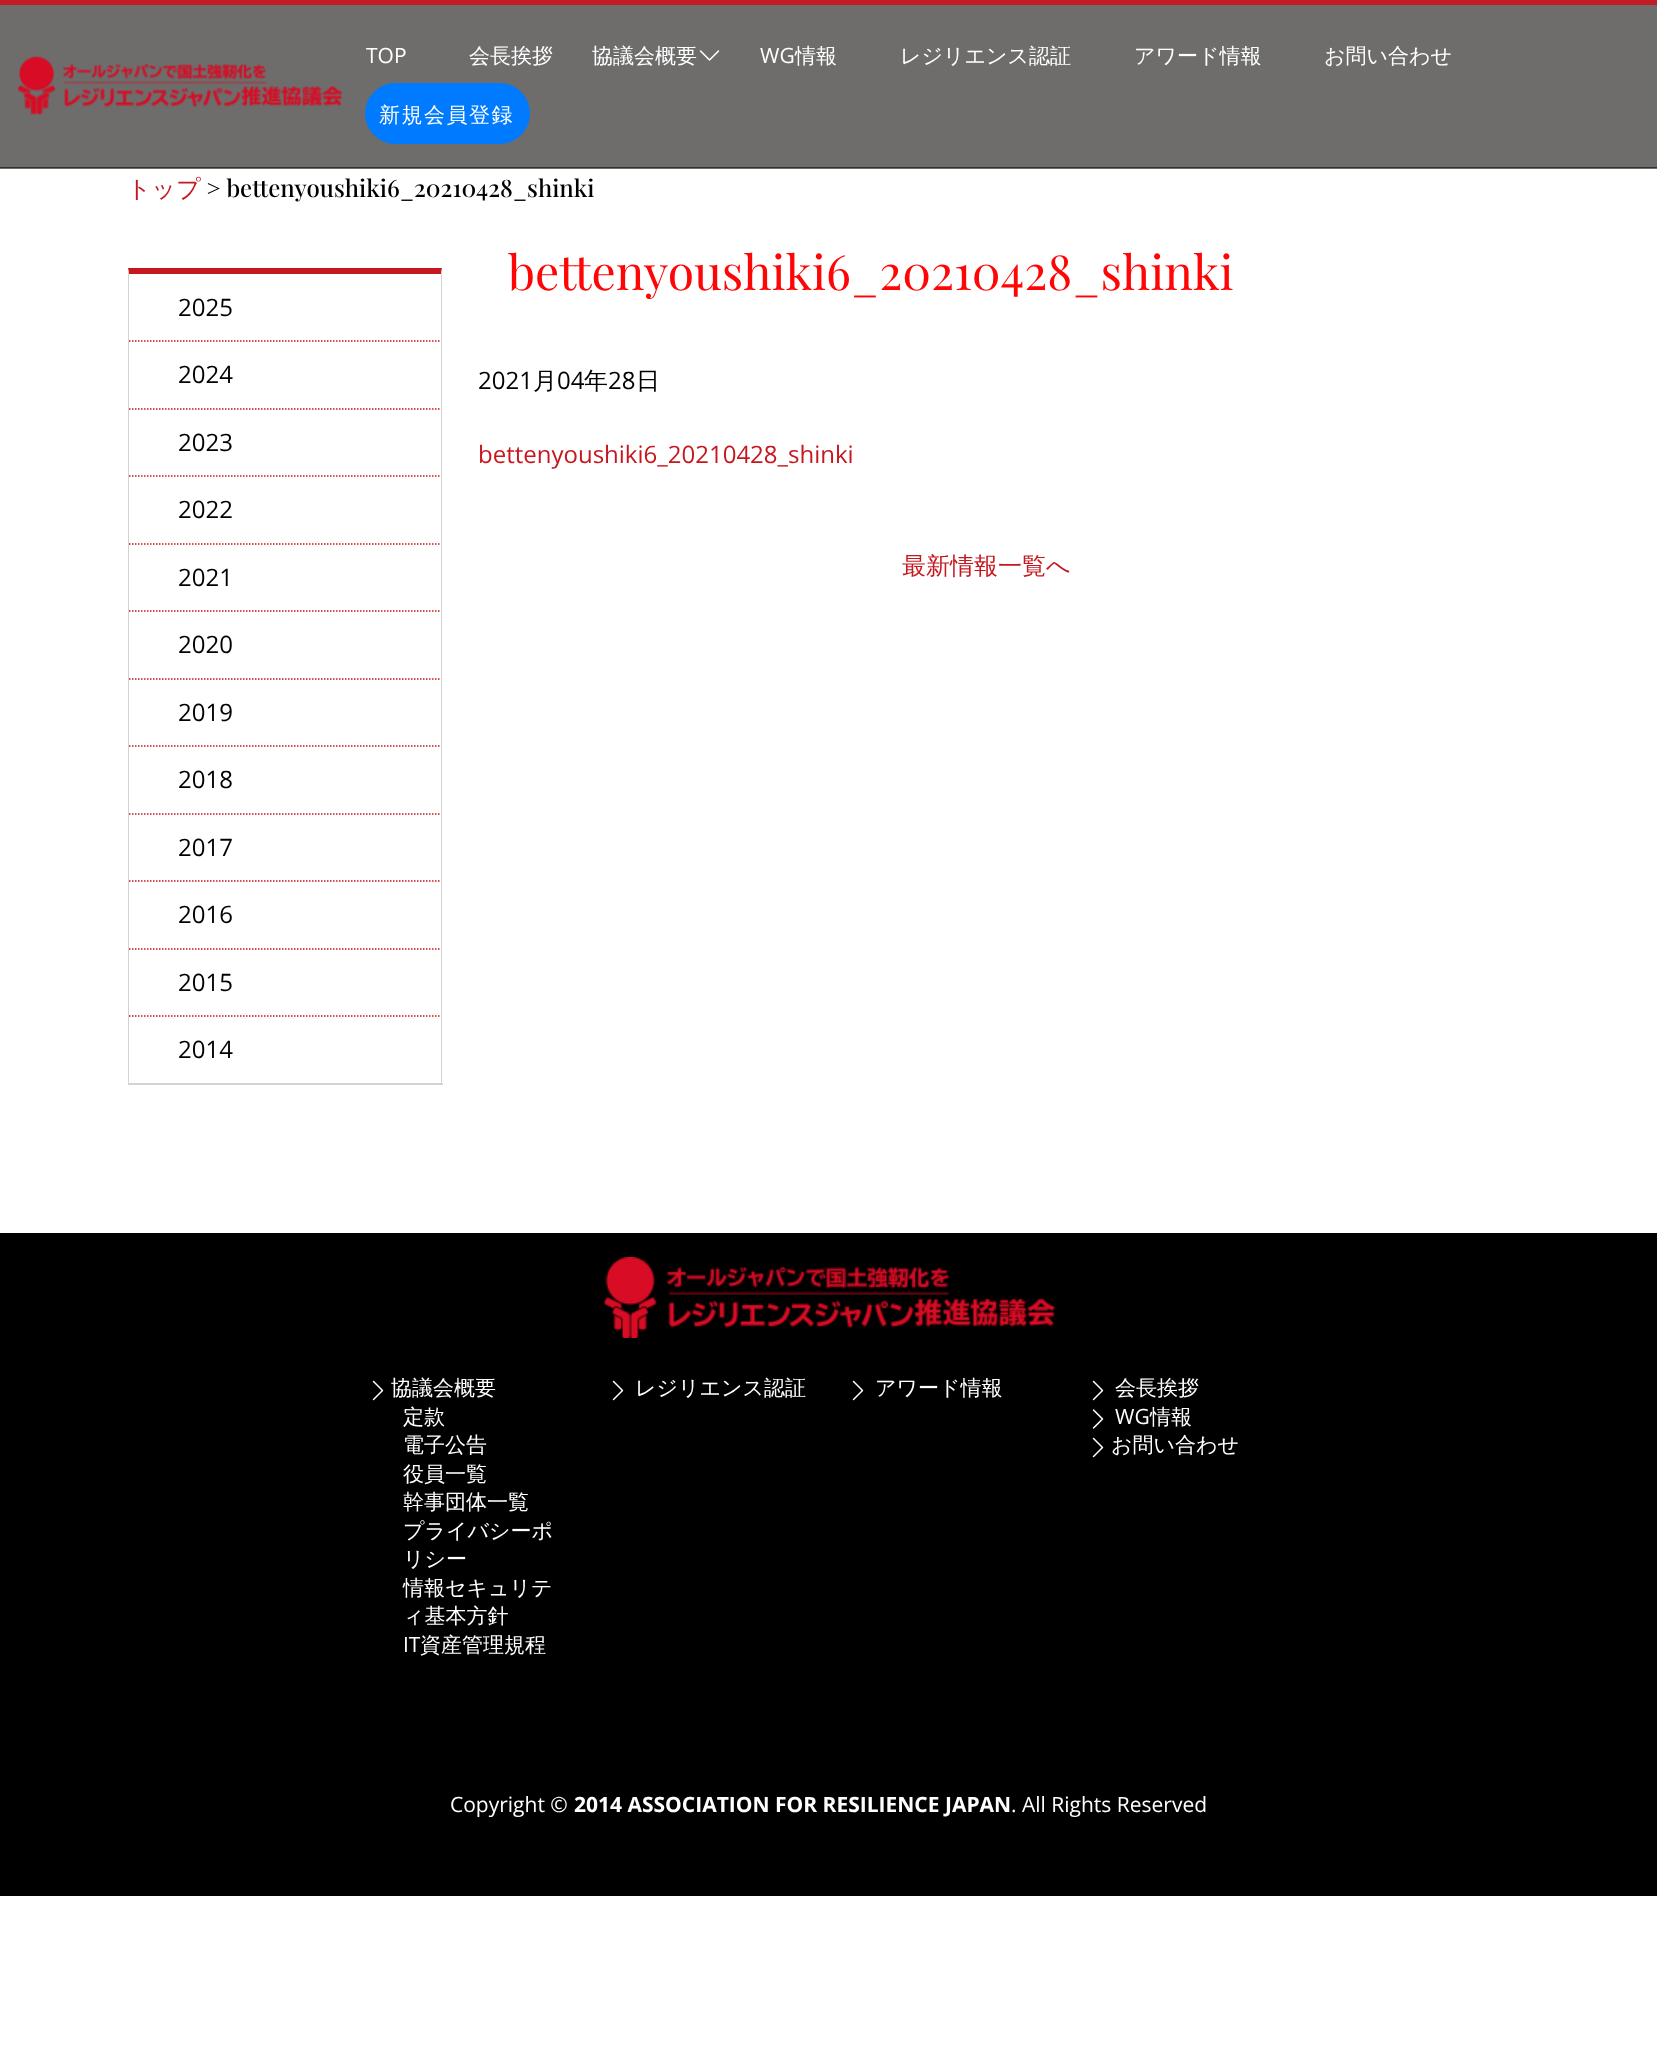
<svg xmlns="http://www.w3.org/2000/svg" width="1657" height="2059">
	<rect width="100%" height="100%" fill="#FFFFFF" />
	<rect x="0" y="168" width="1657" height="1" fill="#6D6D6B" />
	<rect x="0" y="5" width="1657" height="162" fill="#6E6D6C" />
	<rect x="0" y="167" width="1657" height="1" fill="#333231" />
	<rect x="0" y="0" width="1657" height="5" fill="#C31B26" />
	<image x="18" y="56" width="324" height="59" href="assets/img1.png" />
	<text x="366" y="63" font-family="Open Sans" font-size="21" fill="#FFFFFF">TOP</text>
	<g font-family="WenQuanYi Zen Hei" font-size="21" font-weight="500" fill="#FFFFFF">
		<text x="469" y="63">会長挨拶</text>
		<text x="592" y="63">協議会概要</text>
	</g>
	<image x="699" y="50" width="21" height="11" href="assets/img2.png" />
	<text x="760" y="63" font-family="Open Sans" font-size="21" fill="#FFFFFF">WG</text>
	<g font-family="WenQuanYi Zen Hei" font-size="21" font-weight="500" fill="#FFFFFF">
		<text x="795" y="63">情報</text>
		<text x="900" y="63">レジリエンス認証</text>
		<text x="1134" y="63">アワード情報</text>
		<text x="1324" y="63">お問い合わせ</text>
	</g>
	<rect x="366.5" y="84.5" width="162" height="58" rx="29" fill="#007AFF" stroke="#007AFF" stroke-width="3" />
	<text x="379" y="122" font-family="WenQuanYi Zen Hei" font-size="21" font-weight="500" letter-spacing="1.5" fill="#FFFFFF">新規会員登録</text>
	<text x="127" y="197" font-family="WenQuanYi Zen Hei" font-size="24" font-weight="500" fill="#C6171F">トップ</text>
	<text x="206" y="197" font-family="Playfair Display" font-size="24" font-weight="500" fill="#000000">&gt; bettenyoushiki6_20210428_shinki</text>
	<path d="M128 268H442L441 274H129Z" fill="#C6171F" />
	<path d="M442 268V1084L441 1083V274Z" fill="#D3D3D3" />
	<rect x="128" y="1083" width="315" height="2" fill="#D3D3D3" />
	<path d="M128 1084V268L129 274V1083Z" fill="#D3D3D3" />
	<text x="178" y="316" font-family="Open Sans" font-size="24" fill="#000000">2025</text>
	<path d="M129 341H441" fill="none" stroke="#C6171F" stroke-width="1.5" stroke-dasharray="1.5 1.5" />
	<text x="178" y="383" font-family="Open Sans" font-size="24" fill="#000000">2024</text>
	<path d="M129 409H441" fill="none" stroke="#C6171F" stroke-width="1.5" stroke-dasharray="1.5 1.5" />
	<text x="178" y="451" font-family="Open Sans" font-size="24" fill="#000000">2023</text>
	<path d="M129 476H441" fill="none" stroke="#C6171F" stroke-width="1.5" stroke-dasharray="1.5 1.5" />
	<text x="178" y="518" font-family="Open Sans" font-size="24" fill="#000000">2022</text>
	<path d="M129 544H441" fill="none" stroke="#C6171F" stroke-width="1.5" stroke-dasharray="1.5 1.5" />
	<text x="178" y="586" font-family="Open Sans" font-size="24" fill="#000000">2021</text>
	<path d="M129 611H441" fill="none" stroke="#C6171F" stroke-width="1.5" stroke-dasharray="1.5 1.5" />
	<text x="178" y="653" font-family="Open Sans" font-size="24" fill="#000000">2020</text>
	<path d="M129 679H441" fill="none" stroke="#C6171F" stroke-width="1.5" stroke-dasharray="1.5 1.5" />
	<text x="178" y="721" font-family="Open Sans" font-size="24" fill="#000000">2019</text>
	<path d="M129 746H441" fill="none" stroke="#C6171F" stroke-width="1.5" stroke-dasharray="1.5 1.5" />
	<text x="178" y="788" font-family="Open Sans" font-size="24" fill="#000000">2018</text>
	<path d="M129 814H441" fill="none" stroke="#C6171F" stroke-width="1.5" stroke-dasharray="1.5 1.5" />
	<text x="178" y="856" font-family="Open Sans" font-size="24" fill="#000000">2017</text>
	<path d="M129 881H441" fill="none" stroke="#C6171F" stroke-width="1.5" stroke-dasharray="1.5 1.5" />
	<text x="178" y="923" font-family="Open Sans" font-size="24" fill="#000000">2016</text>
	<path d="M129 949H441" fill="none" stroke="#C6171F" stroke-width="1.5" stroke-dasharray="1.5 1.5" />
	<text x="178" y="991" font-family="Open Sans" font-size="24" fill="#000000">2015</text>
	<path d="M129 1016H441" fill="none" stroke="#C6171F" stroke-width="1.5" stroke-dasharray="1.5 1.5" />
	<text x="178" y="1058" font-family="Open Sans" font-size="24" fill="#000000">2014</text>
	<text x="508" y="290" font-family="Playfair Display" font-size="48" fill="#FF0505">bettenyoushiki6_20210428_shinki</text>
	<text x="478" y="389" font-family="Open Sans" font-size="24" fill="#000000">2021</text>
	<text x="533" y="389" font-family="WenQuanYi Zen Hei" font-size="24" font-weight="500" fill="#000000">月</text>
	<text x="557" y="389" font-family="Open Sans" font-size="24" fill="#000000">04</text>
	<text x="584" y="389" font-family="WenQuanYi Zen Hei" font-size="24" font-weight="500" fill="#000000">年</text>
	<text x="608" y="389" font-family="Open Sans" font-size="24" fill="#000000">28</text>
	<text x="636" y="389" font-family="WenQuanYi Zen Hei" font-size="24" font-weight="500" fill="#000000">日</text>
	<text x="478" y="463" font-family="Open Sans" font-size="24" fill="#C6171F">bettenyoushiki6_20210428_shinki</text>
	<text x="902" y="574" font-family="WenQuanYi Zen Hei" font-size="24" font-weight="500" fill="#C6171F">最新情報一覧へ</text>
	<rect x="0" y="1233" width="1657" height="663" fill="#000000" />
	<image x="604" y="1257" width="451" height="81" href="assets/img3.png" />
	<image x="372" y="1380" width="12" height="21" href="assets/img4.png" />
	<g font-family="WenQuanYi Zen Hei" font-size="21" font-weight="500" fill="#FFFFFF">
		<text x="391" y="1395">協議会概要</text>
		<text x="403" y="1424">定款</text>
		<text x="403" y="1452">電子公告</text>
		<text x="403" y="1481">役員一覧</text>
		<text x="403" y="1509">幹事団体一覧</text>
		<text x="403" y="1538">プライバシーポ</text>
		<text x="403" y="1566">リシー</text>
		<text x="403" y="1595">情報セキュリテ</text>
		<text x="403" y="1623">ィ基本方針</text>
	</g>
	<text x="403" y="1652" font-family="Open Sans" font-size="21" fill="#FFFFFF">IT</text>
	<text x="420" y="1652" font-family="WenQuanYi Zen Hei" font-size="21" font-weight="500" fill="#FFFFFF">資産管理規程</text>
	<image x="612" y="1380" width="12" height="21" href="assets/img4.png" />
	<text x="635" y="1395" font-family="WenQuanYi Zen Hei" font-size="21" font-weight="500" fill="#FFFFFF">レジリエンス認証</text>
	<image x="852" y="1380" width="12" height="21" href="assets/img4.png" />
	<text x="875" y="1395" font-family="WenQuanYi Zen Hei" font-size="21" font-weight="500" fill="#FFFFFF">アワード情報</text>
	<image x="1092" y="1380" width="12" height="21" href="assets/img4.png" />
	<text x="1115" y="1395" font-family="WenQuanYi Zen Hei" font-size="21" font-weight="500" fill="#FFFFFF">会長挨拶</text>
	<image x="1092" y="1409" width="12" height="20" href="assets/img5.png" />
	<text x="1115" y="1424" font-family="Open Sans" font-size="21" fill="#FFFFFF">WG</text>
	<text x="1150" y="1424" font-family="WenQuanYi Zen Hei" font-size="21" font-weight="500" fill="#FFFFFF">情報</text>
	<image x="1092" y="1437" width="12" height="21" href="assets/img4.png" />
	<text x="1111" y="1452" font-family="WenQuanYi Zen Hei" font-size="21" font-weight="500" fill="#FFFFFF">お問い合わせ</text>
	<text x="450" y="1812" font-family="Open Sans" font-size="21" fill="#FFFFFF">Copyright ©</text>
	<text x="574" y="1812" font-family="Open Sans" font-size="21" font-weight="700" fill="#FFFFFF">2014 ASSOCIATION FOR RESILIENCE JAPAN</text>
	<text x="1011" y="1812" font-family="Open Sans" font-size="21" fill="#FFFFFF">. All Rights Reserved</text>
</svg>
